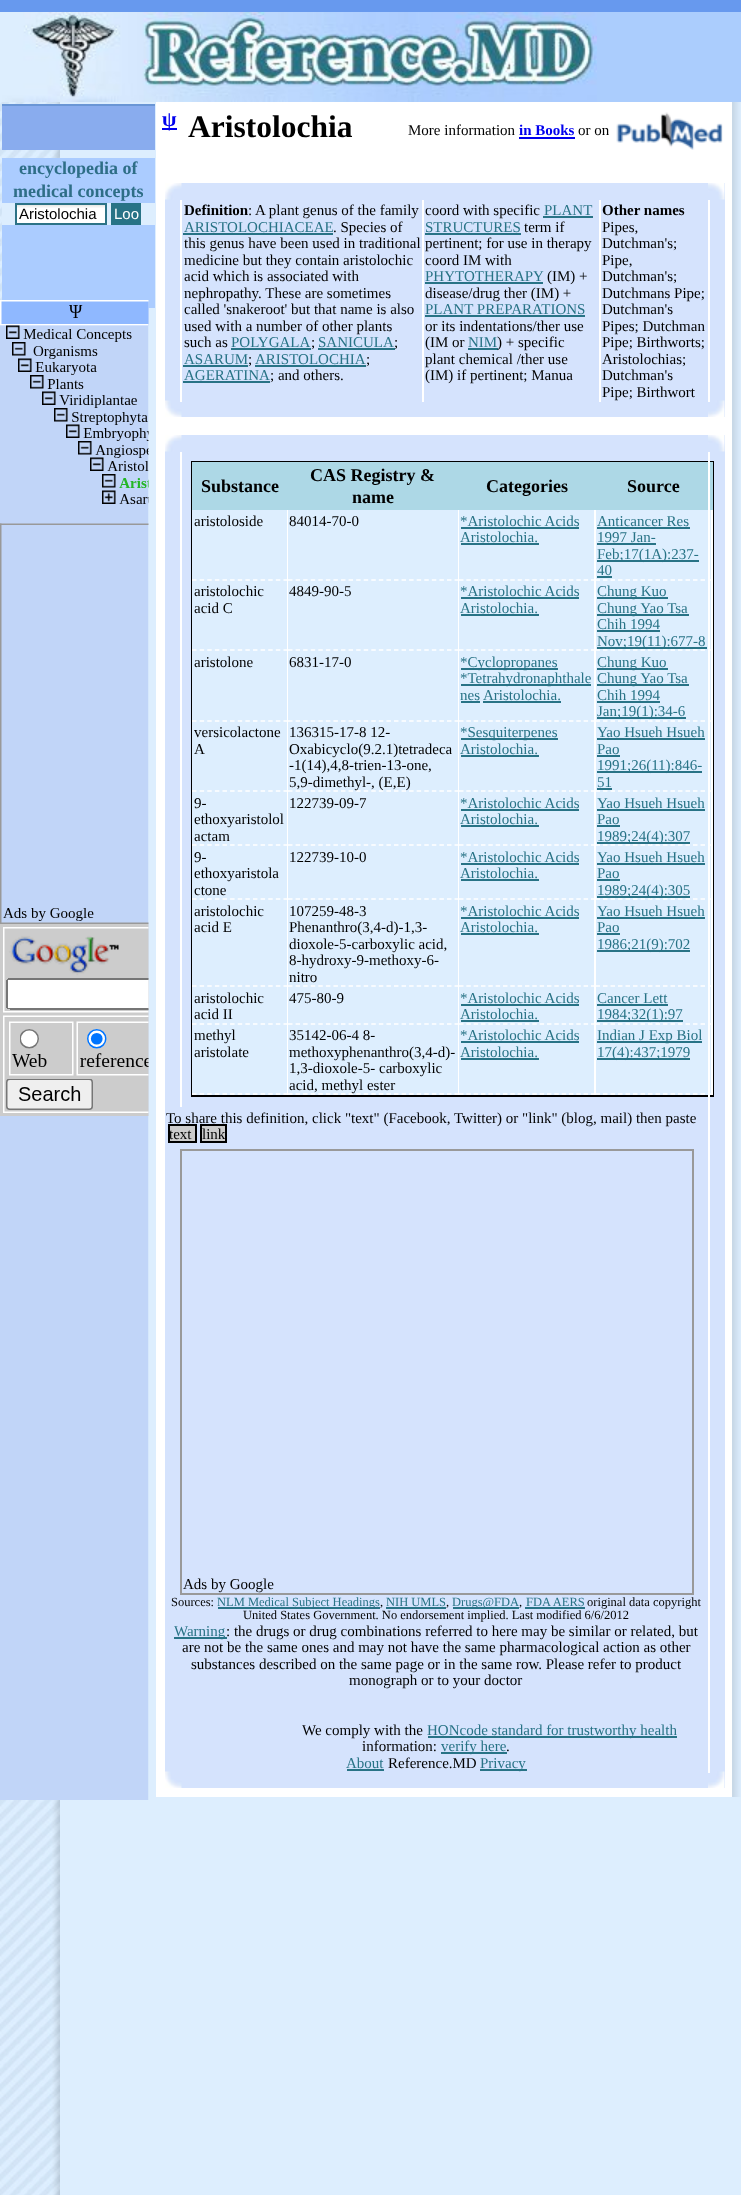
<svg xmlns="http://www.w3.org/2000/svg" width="741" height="2195">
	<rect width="100%" height="100%" fill="#DDEEFE" />
	<image x="0" y="102" width="60" height="2093" href="assets/img1.png" />
	<rect x="0" y="0" width="741" height="12" fill="#6799EE" />
	<rect x="597" y="12" width="144" height="90" fill="#ABCDFD" />
	<image x="0" y="12" width="597" height="90" href="assets/img2.png" />
	<rect x="2" y="106" width="153" height="44" fill="#89ACEE" />
	<rect x="2" y="104" width="153" height="2" fill="#6A96D5" />
	<rect x="2" y="158" width="153" height="150" fill="#ABCCFF" />
	<g font-family="Liberation Serif" font-size="18" font-weight="700" fill="#2E6E87">
		<text x="19" y="174">encyclopedia of</text>
		<text x="13" y="197">medical concepts</text>
	</g>
	<rect x="2" y="203" width="153" height="22" fill="#DDEEFE" />
	<rect x="17" y="208" width="88" height="15" fill="#FFFFFF" />
	<image x="17" y="205" width="88" height="3" href="assets/img3.png" />
	<rect x="16" y="204" width="90" height="20" fill="none" stroke="#2C7387" stroke-width="2" />
	<text x="19" y="219" font-family="Liberation Sans" font-size="15" fill="#000000">Aristolochia</text>
	<rect x="111" y="203" width="30" height="22" fill="#287386" />
	<text x="114" y="219" font-family="Liberation Sans" font-size="15" fill="#FFFFFF">Loo</text>
	<rect x="156" y="102" width="576" height="1695" fill="#FFFFFF" />
	<image x="732" y="102" width="9" height="1695" href="assets/img4.png" />
	<rect x="162" y="128" width="15" height="2" fill="#0000EE" />
	<text x="162" y="126" font-family="Liberation Serif" font-size="21" font-weight="700" fill="#0000EE">ψ</text>
	<text x="188" y="137" font-family="Liberation Serif" font-size="31.5" font-weight="700" fill="#000000">Aristolochia</text>
	<text x="408" y="135" font-family="Liberation Serif" font-size="15" fill="#000000">More information</text>
	<text x="519" y="135" font-family="Liberation Serif" font-size="15" font-weight="700" fill="#0000EE">in Books</text>
	<rect x="519" y="137" width="56" height="2" fill="#0000EE" />
	<text x="578" y="135" font-family="Liberation Serif" font-size="15" fill="#000000">or on</text>
	<image x="616" y="112" width="107" height="38" href="assets/img5.png" />
	<rect x="165" y="183" width="560" height="1605" fill="#D5E3FD" />
	<image x="165" y="183" width="17" height="17" href="assets/img6.png" />
	<image x="708" y="183" width="17" height="17" href="assets/img7.png" />
	<image x="165" y="400" width="17" height="17" href="assets/img8.png" />
	<rect x="180" y="200" width="2" height="202" fill="#FFFFFF" />
	<rect x="422" y="200" width="2" height="202" fill="#FFFFFF" />
	<text x="184" y="215" font-family="Liberation Serif" font-size="15" font-weight="700" fill="#000000">Definition</text>
	<text x="248" y="215" font-family="Liberation Serif" font-size="15" fill="#000000">: A plant genus of the family</text>
	<text x="184" y="232" font-family="Liberation Serif" font-size="15" fill="#287386">ARISTOLOCHIACEAE</text>
	<rect x="183" y="233" width="150" height="2" fill="#287386" />
	<g font-family="Liberation Serif" font-size="15" fill="#000000">
		<text x="333" y="232">. Species of</text>
		<text x="184" y="248">this genus have been used in traditional</text>
		<text x="184" y="265">medicine but they contain aristolochic</text>
		<text x="184" y="281">acid which is associated with</text>
		<text x="184" y="298">nephropathy. These are sometimes</text>
		<text x="184" y="314">called 'snakeroot' but that name is also</text>
		<text x="184" y="331">used with a number of other plants</text>
		<text x="184" y="347">such as</text>
	</g>
	<text x="231" y="347" font-family="Liberation Serif" font-size="15" fill="#287386">POLYGALA</text>
	<rect x="231" y="348" width="80" height="2" fill="#287386" />
	<text x="311" y="347" font-family="Liberation Serif" font-size="15" fill="#000000">;</text>
	<text x="318" y="347" font-family="Liberation Serif" font-size="15" fill="#287386">SANICULA</text>
	<rect x="318" y="348" width="77" height="2" fill="#287386" />
	<text x="394" y="347" font-family="Liberation Serif" font-size="15" fill="#000000">;</text>
	<text x="184" y="364" font-family="Liberation Serif" font-size="15" fill="#287386">ASARUM</text>
	<rect x="183" y="365" width="65" height="2" fill="#287386" />
	<text x="248" y="364" font-family="Liberation Serif" font-size="15" fill="#000000">;</text>
	<text x="255" y="364" font-family="Liberation Serif" font-size="15" fill="#287386">ARISTOLOCHIA</text>
	<rect x="255" y="365" width="111" height="2" fill="#287386" />
	<text x="366" y="364" font-family="Liberation Serif" font-size="15" fill="#000000">;</text>
	<text x="184" y="380" font-family="Liberation Serif" font-size="15" fill="#287386">AGERATINA</text>
	<rect x="183" y="381" width="87" height="2" fill="#287386" />
	<text x="270" y="380" font-family="Liberation Serif" font-size="15" fill="#000000">; and others.</text>
	<rect x="599" y="200" width="2" height="202" fill="#FFFFFF" />
	<text x="425" y="215" font-family="Liberation Serif" font-size="15" fill="#000000">coord with specific</text>
	<text x="544" y="215" font-family="Liberation Serif" font-size="15" fill="#287386">PLANT</text>
	<rect x="543" y="216" width="50" height="2" fill="#287386" />
	<text x="425" y="232" font-family="Liberation Serif" font-size="15" fill="#287386">STRUCTURES</text>
	<rect x="425" y="233" width="96" height="2" fill="#287386" />
	<g font-family="Liberation Serif" font-size="15" fill="#000000">
		<text x="524" y="232">term if</text>
		<text x="425" y="248">pertinent; for use in therapy</text>
		<text x="425" y="265">coord IM with</text>
	</g>
	<text x="425" y="281" font-family="Liberation Serif" font-size="15" fill="#287386">PHYTOTHERAPY</text>
	<rect x="425" y="282" width="118" height="2" fill="#287386" />
	<g font-family="Liberation Serif" font-size="15" fill="#000000">
		<text x="547" y="281">(IM) +</text>
		<text x="425" y="298">disease/drug ther (IM) +</text>
	</g>
	<text x="425" y="314" font-family="Liberation Serif" font-size="15" fill="#287386">PLANT PREPARATIONS</text>
	<rect x="425" y="315" width="160" height="2" fill="#287386" />
	<g font-family="Liberation Serif" font-size="15" fill="#000000">
		<text x="425" y="331">or its indentations/ther use</text>
		<text x="425" y="347">(IM or</text>
	</g>
	<text x="468" y="347" font-family="Liberation Serif" font-size="15" fill="#287386">NIM</text>
	<rect x="468" y="348" width="30" height="2" fill="#287386" />
	<g font-family="Liberation Serif" font-size="15" fill="#000000">
		<text x="497" y="347">) + specific</text>
		<text x="425" y="364">plant chemical /ther use</text>
		<text x="425" y="380">(IM) if pertinent; Manua</text>
	</g>
	<image x="708" y="400" width="17" height="17" href="assets/img9.png" />
	<rect x="708" y="200" width="2" height="202" fill="#FFFFFF" />
	<text x="602" y="215" font-family="Liberation Serif" font-size="15" font-weight="700" fill="#000000">Other names</text>
	<g font-family="Liberation Serif" font-size="15" fill="#000000">
		<text x="602" y="232">Pipes,</text>
		<text x="602" y="248">Dutchman's;</text>
		<text x="602" y="265">Pipe,</text>
		<text x="602" y="281">Dutchman's;</text>
		<text x="602" y="298">Dutchmans Pipe;</text>
		<text x="602" y="314">Dutchman's</text>
		<text x="602" y="331">Pipes; Dutchman</text>
		<text x="602" y="347">Pipe; Birthworts;</text>
		<text x="602" y="364">Aristolochias;</text>
		<text x="602" y="380">Dutchman's</text>
		<text x="602" y="397">Pipe; Birthwort</text>
	</g>
	<rect x="165" y="417" width="560" height="18" fill="#FFFFFF" />
	<image x="165" y="435" width="17" height="17" href="assets/img6.png" />
	<image x="708" y="435" width="17" height="17" href="assets/img7.png" />
	<rect x="180" y="452" width="2" height="655" fill="#FFFFFF" />
	<rect x="192" y="462" width="521" height="634" fill="none" stroke="#000000" stroke-width="2" />
	<rect x="192" y="462" width="521" height="48" fill="#ADD8E6" />
	<g font-family="Liberation Serif" font-size="18" font-weight="700" fill="#000000">
		<text x="201" y="492">Substance</text>
		<text x="310" y="481">CAS Registry &amp;</text>
		<text x="352" y="503">name</text>
		<text x="486" y="492">Categories</text>
		<text x="627" y="492">Source</text>
	</g>
	<rect x="192" y="510" width="95" height="585" fill="#DDEEFE" />
	<rect x="287" y="510" width="1" height="585" fill="#FFFFFF" />
	<path d="M192 580H288" fill="none" stroke="#FFFFFF" stroke-width="1.5" stroke-dasharray="4.5 3.12" />
	<text x="194" y="526" font-family="Liberation Serif" font-size="15" fill="#000000">aristoloside</text>
	<rect x="288" y="510" width="170" height="585" fill="#DDEEFE" />
	<rect x="458" y="510" width="1" height="585" fill="#FFFFFF" />
	<path d="M288 580H459" fill="none" stroke="#FFFFFF" stroke-width="1.5" stroke-dasharray="4.5 3.07" />
	<text x="289" y="526" font-family="Liberation Serif" font-size="15" fill="#000000">84014-70-0</text>
	<rect x="459" y="510" width="135" height="585" fill="#DDEEFE" />
	<rect x="594" y="510" width="2" height="585" fill="#FFFFFF" />
	<path d="M459 580H595.5" fill="none" stroke="#FFFFFF" stroke-width="1.5" stroke-dasharray="4.5 2.83" />
	<text x="460" y="526" font-family="Liberation Serif" font-size="15" fill="#287386">*Aristolochic Acids</text>
	<rect x="461" y="527" width="118" height="2" fill="#287386" />
	<text x="460" y="542" font-family="Liberation Serif" font-size="15" fill="#287386">Aristolochia.</text>
	<rect x="461" y="543" width="78" height="2" fill="#287386" />
	<rect x="596" y="510" width="115" height="585" fill="#DDEEFE" />
	<rect x="711" y="510" width="2" height="585" fill="#FFFFFF" />
	<path d="M595.5 580H712.5" fill="none" stroke="#FFFFFF" stroke-width="1.5" stroke-dasharray="4.5 3" />
	<text x="597" y="526" font-family="Liberation Serif" font-size="15" fill="#287386">Anticancer Res</text>
	<rect x="597" y="527" width="93" height="2" fill="#287386" />
	<text x="597" y="542" font-family="Liberation Serif" font-size="15" fill="#287386">1997 Jan-</text>
	<rect x="597" y="543" width="59" height="2" fill="#287386" />
	<rect x="597" y="560" width="102" height="2" fill="#287386" />
	<g font-family="Liberation Serif" font-size="15" fill="#287386">
		<text x="597" y="559">Feb;17(1A):237-</text>
		<text x="597" y="575">40</text>
	</g>
	<rect x="597" y="576" width="15" height="2" fill="#287386" />
	<path d="M192 650H288" fill="none" stroke="#FFFFFF" stroke-width="1.5" stroke-dasharray="4.5 3.12" />
	<g font-family="Liberation Serif" font-size="15" fill="#000000">
		<text x="194" y="596">aristolochic</text>
		<text x="194" y="613">acid C</text>
	</g>
	<path d="M288 650H459" fill="none" stroke="#FFFFFF" stroke-width="1.5" stroke-dasharray="4.5 3.07" />
	<text x="289" y="596" font-family="Liberation Serif" font-size="15" fill="#000000">4849-90-5</text>
	<path d="M459 650H595.5" fill="none" stroke="#FFFFFF" stroke-width="1.5" stroke-dasharray="4.5 2.83" />
	<text x="460" y="596" font-family="Liberation Serif" font-size="15" fill="#287386">*Aristolochic Acids</text>
	<rect x="461" y="597" width="118" height="2" fill="#287386" />
	<text x="460" y="613" font-family="Liberation Serif" font-size="15" fill="#287386">Aristolochia.</text>
	<rect x="461" y="614" width="78" height="2" fill="#287386" />
	<path d="M595.5 650H712.5" fill="none" stroke="#FFFFFF" stroke-width="1.5" stroke-dasharray="4.5 3" />
	<rect x="597" y="597" width="71" height="2" fill="#287386" />
	<text x="597" y="596" font-family="Liberation Serif" font-size="15" fill="#287386">Chung Kuo</text>
	<rect x="597" y="614" width="92" height="2" fill="#287386" />
	<g font-family="Liberation Serif" font-size="15" fill="#287386">
		<text x="597" y="613">Chung Yao Tsa</text>
		<text x="597" y="629">Chih 1994</text>
	</g>
	<rect x="597" y="630" width="63" height="2" fill="#287386" />
	<rect x="597" y="647" width="110" height="2" fill="#287386" />
	<text x="597" y="646" font-family="Liberation Serif" font-size="15" fill="#287386">Nov;19(11):677-8</text>
	<path d="M192 721H288" fill="none" stroke="#FFFFFF" stroke-width="1.5" stroke-dasharray="4.5 3.12" />
	<text x="194" y="667" font-family="Liberation Serif" font-size="15" fill="#000000">aristolone</text>
	<path d="M288 721H459" fill="none" stroke="#FFFFFF" stroke-width="1.5" stroke-dasharray="4.5 3.07" />
	<text x="289" y="667" font-family="Liberation Serif" font-size="15" fill="#000000">6831-17-0</text>
	<path d="M459 721H595.5" fill="none" stroke="#FFFFFF" stroke-width="1.5" stroke-dasharray="4.5 2.83" />
	<rect x="461" y="668" width="97" height="2" fill="#287386" />
	<text x="460" y="667" font-family="Liberation Serif" font-size="15" fill="#287386">*Cyclopropanes</text>
	<rect x="461" y="684" width="130" height="2" fill="#287386" />
	<g font-family="Liberation Serif" font-size="15" fill="#287386">
		<text x="460" y="683">*Tetrahydronaphthale</text>
		<text x="460" y="700">nes</text>
	</g>
	<rect x="461" y="701" width="19" height="2" fill="#287386" />
	<text x="483" y="700" font-family="Liberation Serif" font-size="15" fill="#287386">Aristolochia.</text>
	<rect x="483" y="701" width="78" height="2" fill="#287386" />
	<path d="M595.5 721H712.5" fill="none" stroke="#FFFFFF" stroke-width="1.5" stroke-dasharray="4.5 3" />
	<rect x="597" y="668" width="71" height="2" fill="#287386" />
	<text x="597" y="667" font-family="Liberation Serif" font-size="15" fill="#287386">Chung Kuo</text>
	<rect x="597" y="684" width="92" height="2" fill="#287386" />
	<g font-family="Liberation Serif" font-size="15" fill="#287386">
		<text x="597" y="683">Chung Yao Tsa</text>
		<text x="597" y="700">Chih 1994</text>
	</g>
	<rect x="597" y="701" width="63" height="2" fill="#287386" />
	<rect x="597" y="717" width="89" height="2" fill="#287386" />
	<text x="597" y="716" font-family="Liberation Serif" font-size="15" fill="#287386">Jan;19(1):34-6</text>
	<path d="M192 791H288" fill="none" stroke="#FFFFFF" stroke-width="1.5" stroke-dasharray="4.5 3.12" />
	<g font-family="Liberation Serif" font-size="15" fill="#000000">
		<text x="194" y="737">versicolactone</text>
		<text x="194" y="754">A</text>
	</g>
	<path d="M288 791H459" fill="none" stroke="#FFFFFF" stroke-width="1.5" stroke-dasharray="4.5 3.07" />
	<g font-family="Liberation Serif" font-size="15" fill="#000000">
		<text x="289" y="737">136315-17-8 12-</text>
		<text x="289" y="754">Oxabicyclo(9.2.1)tetradeca</text>
		<text x="289" y="770">-1(14),4,8-trien-13-one,</text>
		<text x="289" y="787">5,9-dimethyl-, (E,E)</text>
	</g>
	<path d="M459 791H595.5" fill="none" stroke="#FFFFFF" stroke-width="1.5" stroke-dasharray="4.5 2.83" />
	<rect x="461" y="738" width="97" height="2" fill="#287386" />
	<g font-family="Liberation Serif" font-size="15" fill="#287386">
		<text x="460" y="737">*Sesquiterpenes</text>
		<text x="460" y="754">Aristolochia.</text>
	</g>
	<rect x="461" y="755" width="78" height="2" fill="#287386" />
	<path d="M595.5 791H712.5" fill="none" stroke="#FFFFFF" stroke-width="1.5" stroke-dasharray="4.5 3" />
	<text x="597" y="737" font-family="Liberation Serif" font-size="15" fill="#287386">Yao Hsueh Hsueh</text>
	<rect x="597" y="738" width="108" height="2" fill="#287386" />
	<text x="597" y="754" font-family="Liberation Serif" font-size="15" fill="#287386">Pao</text>
	<rect x="597" y="755" width="23" height="2" fill="#287386" />
	<rect x="597" y="771" width="105" height="2" fill="#287386" />
	<g font-family="Liberation Serif" font-size="15" fill="#287386">
		<text x="597" y="770">1991;26(11):846-</text>
		<text x="597" y="787">51</text>
	</g>
	<rect x="597" y="788" width="15" height="2" fill="#287386" />
	<path d="M192 845H288" fill="none" stroke="#FFFFFF" stroke-width="1.5" stroke-dasharray="4.5 3.12" />
	<g font-family="Liberation Serif" font-size="15" fill="#000000">
		<text x="194" y="808">9-</text>
		<text x="194" y="824">ethoxyaristolol</text>
		<text x="194" y="841">actam</text>
	</g>
	<path d="M288 845H459" fill="none" stroke="#FFFFFF" stroke-width="1.5" stroke-dasharray="4.5 3.07" />
	<text x="289" y="808" font-family="Liberation Serif" font-size="15" fill="#000000">122739-09-7</text>
	<path d="M459 845H595.5" fill="none" stroke="#FFFFFF" stroke-width="1.5" stroke-dasharray="4.5 2.83" />
	<text x="460" y="808" font-family="Liberation Serif" font-size="15" fill="#287386">*Aristolochic Acids</text>
	<rect x="461" y="809" width="118" height="2" fill="#287386" />
	<text x="460" y="824" font-family="Liberation Serif" font-size="15" fill="#287386">Aristolochia.</text>
	<rect x="461" y="825" width="78" height="2" fill="#287386" />
	<path d="M595.5 845H712.5" fill="none" stroke="#FFFFFF" stroke-width="1.5" stroke-dasharray="4.5 3" />
	<text x="597" y="808" font-family="Liberation Serif" font-size="15" fill="#287386">Yao Hsueh Hsueh</text>
	<rect x="597" y="809" width="108" height="2" fill="#287386" />
	<text x="597" y="824" font-family="Liberation Serif" font-size="15" fill="#287386">Pao</text>
	<rect x="597" y="825" width="23" height="2" fill="#287386" />
	<rect x="597" y="842" width="93" height="2" fill="#287386" />
	<text x="597" y="841" font-family="Liberation Serif" font-size="15" fill="#287386">1989;24(4):307</text>
	<path d="M192 899H288" fill="none" stroke="#FFFFFF" stroke-width="1.5" stroke-dasharray="4.5 3.12" />
	<g font-family="Liberation Serif" font-size="15" fill="#000000">
		<text x="194" y="862">9-</text>
		<text x="194" y="878">ethoxyaristola</text>
		<text x="194" y="895">ctone</text>
	</g>
	<path d="M288 899H459" fill="none" stroke="#FFFFFF" stroke-width="1.5" stroke-dasharray="4.5 3.07" />
	<text x="289" y="862" font-family="Liberation Serif" font-size="15" fill="#000000">122739-10-0</text>
	<path d="M459 899H595.5" fill="none" stroke="#FFFFFF" stroke-width="1.5" stroke-dasharray="4.5 2.83" />
	<text x="460" y="862" font-family="Liberation Serif" font-size="15" fill="#287386">*Aristolochic Acids</text>
	<rect x="461" y="863" width="118" height="2" fill="#287386" />
	<text x="460" y="878" font-family="Liberation Serif" font-size="15" fill="#287386">Aristolochia.</text>
	<rect x="461" y="879" width="78" height="2" fill="#287386" />
	<path d="M595.5 899H712.5" fill="none" stroke="#FFFFFF" stroke-width="1.5" stroke-dasharray="4.5 3" />
	<text x="597" y="862" font-family="Liberation Serif" font-size="15" fill="#287386">Yao Hsueh Hsueh</text>
	<rect x="597" y="863" width="108" height="2" fill="#287386" />
	<text x="597" y="878" font-family="Liberation Serif" font-size="15" fill="#287386">Pao</text>
	<rect x="597" y="879" width="23" height="2" fill="#287386" />
	<rect x="597" y="896" width="93" height="2" fill="#287386" />
	<text x="597" y="895" font-family="Liberation Serif" font-size="15" fill="#287386">1989;24(4):305</text>
	<path d="M192 986H288" fill="none" stroke="#FFFFFF" stroke-width="1.5" stroke-dasharray="4.5 3.12" />
	<g font-family="Liberation Serif" font-size="15" fill="#000000">
		<text x="194" y="916">aristolochic</text>
		<text x="194" y="932">acid E</text>
	</g>
	<path d="M288 986H459" fill="none" stroke="#FFFFFF" stroke-width="1.5" stroke-dasharray="4.5 3.07" />
	<g font-family="Liberation Serif" font-size="15" fill="#000000">
		<text x="289" y="916">107259-48-3</text>
		<text x="289" y="932">Phenanthro(3,4-d)-1,3-</text>
		<text x="289" y="949">dioxole-5-carboxylic acid,</text>
		<text x="289" y="965">8-hydroxy-9-methoxy-6-</text>
		<text x="289" y="982">nitro</text>
	</g>
	<path d="M459 986H595.5" fill="none" stroke="#FFFFFF" stroke-width="1.5" stroke-dasharray="4.5 2.83" />
	<text x="460" y="916" font-family="Liberation Serif" font-size="15" fill="#287386">*Aristolochic Acids</text>
	<rect x="461" y="917" width="118" height="2" fill="#287386" />
	<text x="460" y="932" font-family="Liberation Serif" font-size="15" fill="#287386">Aristolochia.</text>
	<rect x="461" y="933" width="78" height="2" fill="#287386" />
	<path d="M595.5 986H712.5" fill="none" stroke="#FFFFFF" stroke-width="1.5" stroke-dasharray="4.5 3" />
	<text x="597" y="916" font-family="Liberation Serif" font-size="15" fill="#287386">Yao Hsueh Hsueh</text>
	<rect x="597" y="917" width="108" height="2" fill="#287386" />
	<text x="597" y="932" font-family="Liberation Serif" font-size="15" fill="#287386">Pao</text>
	<rect x="597" y="933" width="23" height="2" fill="#287386" />
	<rect x="597" y="950" width="93" height="2" fill="#287386" />
	<text x="597" y="949" font-family="Liberation Serif" font-size="15" fill="#287386">1986;21(9):702</text>
	<path d="M192 1024H288" fill="none" stroke="#FFFFFF" stroke-width="1.5" stroke-dasharray="4.5 3.12" />
	<g font-family="Liberation Serif" font-size="15" fill="#000000">
		<text x="194" y="1003">aristolochic</text>
		<text x="194" y="1019">acid II</text>
	</g>
	<path d="M288 1024H459" fill="none" stroke="#FFFFFF" stroke-width="1.5" stroke-dasharray="4.5 3.07" />
	<text x="289" y="1003" font-family="Liberation Serif" font-size="15" fill="#000000">475-80-9</text>
	<path d="M459 1024H595.5" fill="none" stroke="#FFFFFF" stroke-width="1.5" stroke-dasharray="4.5 2.83" />
	<text x="460" y="1003" font-family="Liberation Serif" font-size="15" fill="#287386">*Aristolochic Acids</text>
	<rect x="461" y="1004" width="118" height="2" fill="#287386" />
	<text x="460" y="1019" font-family="Liberation Serif" font-size="15" fill="#287386">Aristolochia.</text>
	<rect x="461" y="1020" width="78" height="2" fill="#287386" />
	<path d="M595.5 1024H712.5" fill="none" stroke="#FFFFFF" stroke-width="1.5" stroke-dasharray="4.5 3" />
	<text x="597" y="1003" font-family="Liberation Serif" font-size="15" fill="#287386">Cancer Lett</text>
	<rect x="597" y="1004" width="71" height="2" fill="#287386" />
	<rect x="597" y="1020" width="86" height="2" fill="#287386" />
	<text x="597" y="1019" font-family="Liberation Serif" font-size="15" fill="#287386">1984;32(1):97</text>
	<path d="M192 1094H288" fill="none" stroke="#FFFFFF" stroke-width="1.5" stroke-dasharray="4.5 3.12" />
	<g font-family="Liberation Serif" font-size="15" fill="#000000">
		<text x="194" y="1040">methyl</text>
		<text x="194" y="1057">aristolate</text>
	</g>
	<path d="M288 1094H459" fill="none" stroke="#FFFFFF" stroke-width="1.5" stroke-dasharray="4.5 3.07" />
	<g font-family="Liberation Serif" font-size="15" fill="#000000">
		<text x="289" y="1040">35142-06-4 8-</text>
		<text x="289" y="1057">methoxyphenanthro(3,4-d)-</text>
		<text x="289" y="1073">1,3-dioxole-5- carboxylic</text>
		<text x="289" y="1090">acid, methyl ester</text>
	</g>
	<path d="M459 1094H595.5" fill="none" stroke="#FFFFFF" stroke-width="1.5" stroke-dasharray="4.5 2.83" />
	<text x="460" y="1040" font-family="Liberation Serif" font-size="15" fill="#287386">*Aristolochic Acids</text>
	<rect x="461" y="1041" width="118" height="2" fill="#287386" />
	<text x="460" y="1057" font-family="Liberation Serif" font-size="15" fill="#287386">Aristolochia.</text>
	<rect x="461" y="1058" width="78" height="2" fill="#287386" />
	<path d="M595.5 1094H712.5" fill="none" stroke="#FFFFFF" stroke-width="1.5" stroke-dasharray="4.5 3" />
	<rect x="597" y="1041" width="105" height="2" fill="#287386" />
	<text x="597" y="1040" font-family="Liberation Serif" font-size="15" fill="#287386">Indian J Exp Biol</text>
	<rect x="597" y="1058" width="93" height="2" fill="#287386" />
	<text x="597" y="1057" font-family="Liberation Serif" font-size="15" fill="#287386">17(4):437;1979</text>
	<image x="708" y="1771" width="17" height="17" href="assets/img9.png" />
	<rect x="708" y="452" width="2" height="1321" fill="#FFFFFF" />
	<text x="166" y="1123" font-family="Liberation Serif" font-size="15" fill="#000000">To share this definition, click "text" (Facebook, Twitter) or "link" (blog, mail) then paste</text>
	<rect x="169" y="1125" width="27" height="17" fill="#CCCCCC" stroke="#000000" stroke-width="2" />
	<text x="169" y="1139" font-family="Liberation Serif" font-size="15" fill="#000000">text</text>
	<rect x="201" y="1125" width="25" height="17" fill="#CCCCCC" stroke="#000000" stroke-width="2" />
	<text x="202" y="1139" font-family="Liberation Serif" font-size="15" fill="#000000">link</text>
	<rect x="180" y="1149" width="513" height="2" fill="#999999" />
	<rect x="692" y="1149" width="2" height="446" fill="#999999" />
	<rect x="180" y="1593" width="513" height="2" fill="#999999" />
	<rect x="180" y="1149" width="2" height="446" fill="#999999" />
	<text x="183" y="1589" font-family="Liberation Serif" font-size="15" fill="#000000">Ads by Google</text>
	<text x="171" y="1606" font-family="Liberation Serif" font-size="12.5" fill="#000000">Sources:</text>
	<rect x="218" y="1607" width="162" height="2" fill="#287386" />
	<text x="217" y="1606" font-family="Liberation Serif" font-size="12.5" fill="#287386">NLM Medical Subject Headings</text>
	<text x="380" y="1606" font-family="Liberation Serif" font-size="12.5" fill="#000000">,</text>
	<text x="386" y="1606" font-family="Liberation Serif" font-size="12.5" fill="#287386">NIH UMLS</text>
	<text x="446" y="1606" font-family="Liberation Serif" font-size="12.5" fill="#000000">,</text>
	<rect x="386" y="1607" width="60" height="2" fill="#287386" />
	<rect x="453" y="1607" width="66" height="2" fill="#287386" />
	<text x="452" y="1606" font-family="Liberation Serif" font-size="12.5" fill="#287386">Drugs@FDA</text>
	<text x="519" y="1606" font-family="Liberation Serif" font-size="12.5" fill="#000000">,</text>
	<rect x="525" y="1607" width="60" height="2" fill="#287386" />
	<text x="526" y="1606" font-family="Liberation Serif" font-size="12.5" fill="#287386">FDA AERS</text>
	<g font-family="Liberation Serif" font-size="12.5" fill="#000000">
		<text x="587" y="1606">original data copyright</text>
		<text x="243" y="1619">United States Government. No endorsement implied. Last modified 6/6/2012</text>
	</g>
	<rect x="174" y="1637" width="53" height="2" fill="#287386" />
	<text x="174" y="1636" font-family="Liberation Serif" font-size="15" fill="#287386">Warning</text>
	<g font-family="Liberation Serif" font-size="15" fill="#000000">
		<text x="226" y="1636">: the drugs or drug combinations referred to here may be similar or related, but</text>
		<text x="182" y="1652">are not be the same ones and may not have the same pharmacological action as other</text>
		<text x="191" y="1669">substances described on the same page or in the same row. Please refer to product</text>
		<text x="349" y="1685">monograph or to your doctor</text>
		<text x="302" y="1735">We comply with the</text>
	</g>
	<rect x="428" y="1736" width="249" height="2" fill="#287386" />
	<text x="427" y="1735" font-family="Liberation Serif" font-size="15" fill="#287386">HONcode standard for trustworthy health</text>
	<text x="362" y="1751" font-family="Liberation Serif" font-size="15" fill="#000000">information:</text>
	<rect x="441" y="1752" width="66" height="2" fill="#287386" />
	<text x="441" y="1751" font-family="Liberation Serif" font-size="15" fill="#287386">verify here</text>
	<text x="506" y="1751" font-family="Liberation Serif" font-size="15" fill="#000000">.</text>
	<text x="346" y="1768" font-family="Liberation Serif" font-size="15" fill="#287386">About</text>
	<rect x="347" y="1769" width="37" height="2" fill="#287386" />
	<text x="388" y="1768" font-family="Liberation Serif" font-size="15" fill="#000000">Reference.MD</text>
	<rect x="480" y="1769" width="47" height="2" fill="#287386" />
	<text x="480" y="1768" font-family="Liberation Serif" font-size="15" fill="#287386">Privacy</text>
	<image x="165" y="1771" width="17" height="17" href="assets/img8.png" />
	<image x="0" y="300" width="149" height="1500" href="assets/img10.png" />
</svg>
